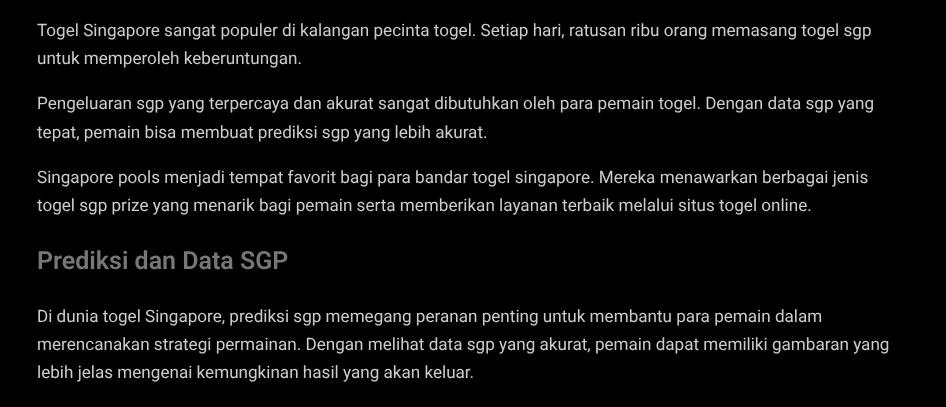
<svg xmlns="http://www.w3.org/2000/svg" width="946" height="407">
	<rect width="100%" height="100%" fill="#000000" />
	<g font-family="Roboto" font-size="17.1" fill="#CCCCCC">
		<text x="37" y="36">Togel Singapore sangat populer di kalangan pecinta togel. Setiap hari, ratusan ribu orang memasang togel sgp</text>
		<text x="37" y="64">untuk memperoleh keberuntungan.</text>
		<text x="37" y="109">Pengeluaran sgp yang terpercaya dan akurat sangat dibutuhkan oleh para pemain togel. Dengan data sgp yang</text>
		<text x="37" y="138">tepat, pemain bisa membuat prediksi sgp yang lebih akurat.</text>
		<text x="37" y="183">Singapore pools menjadi tempat favorit bagi para bandar togel singapore. Mereka menawarkan berbagai jenis</text>
		<text x="37" y="211">togel sgp prize yang menarik bagi pemain serta memberikan layanan terbaik melalui situs togel online.</text>
	</g>
	<text x="37" y="269" font-family="Roboto" font-size="25" font-weight="600" fill="#777777">Prediksi dan Data SGP</text>
	<g font-family="Roboto" font-size="17.1" fill="#CCCCCC">
		<text x="37" y="322">Di dunia togel Singapore, prediksi sgp memegang peranan penting untuk membantu para pemain dalam</text>
		<text x="37" y="350">merencanakan strategi permainan. Dengan melihat data sgp yang akurat, pemain dapat memiliki gambaran yang</text>
		<text x="37" y="378">lebih jelas mengenai kemungkinan hasil yang akan keluar.</text>
	</g>
</svg>
